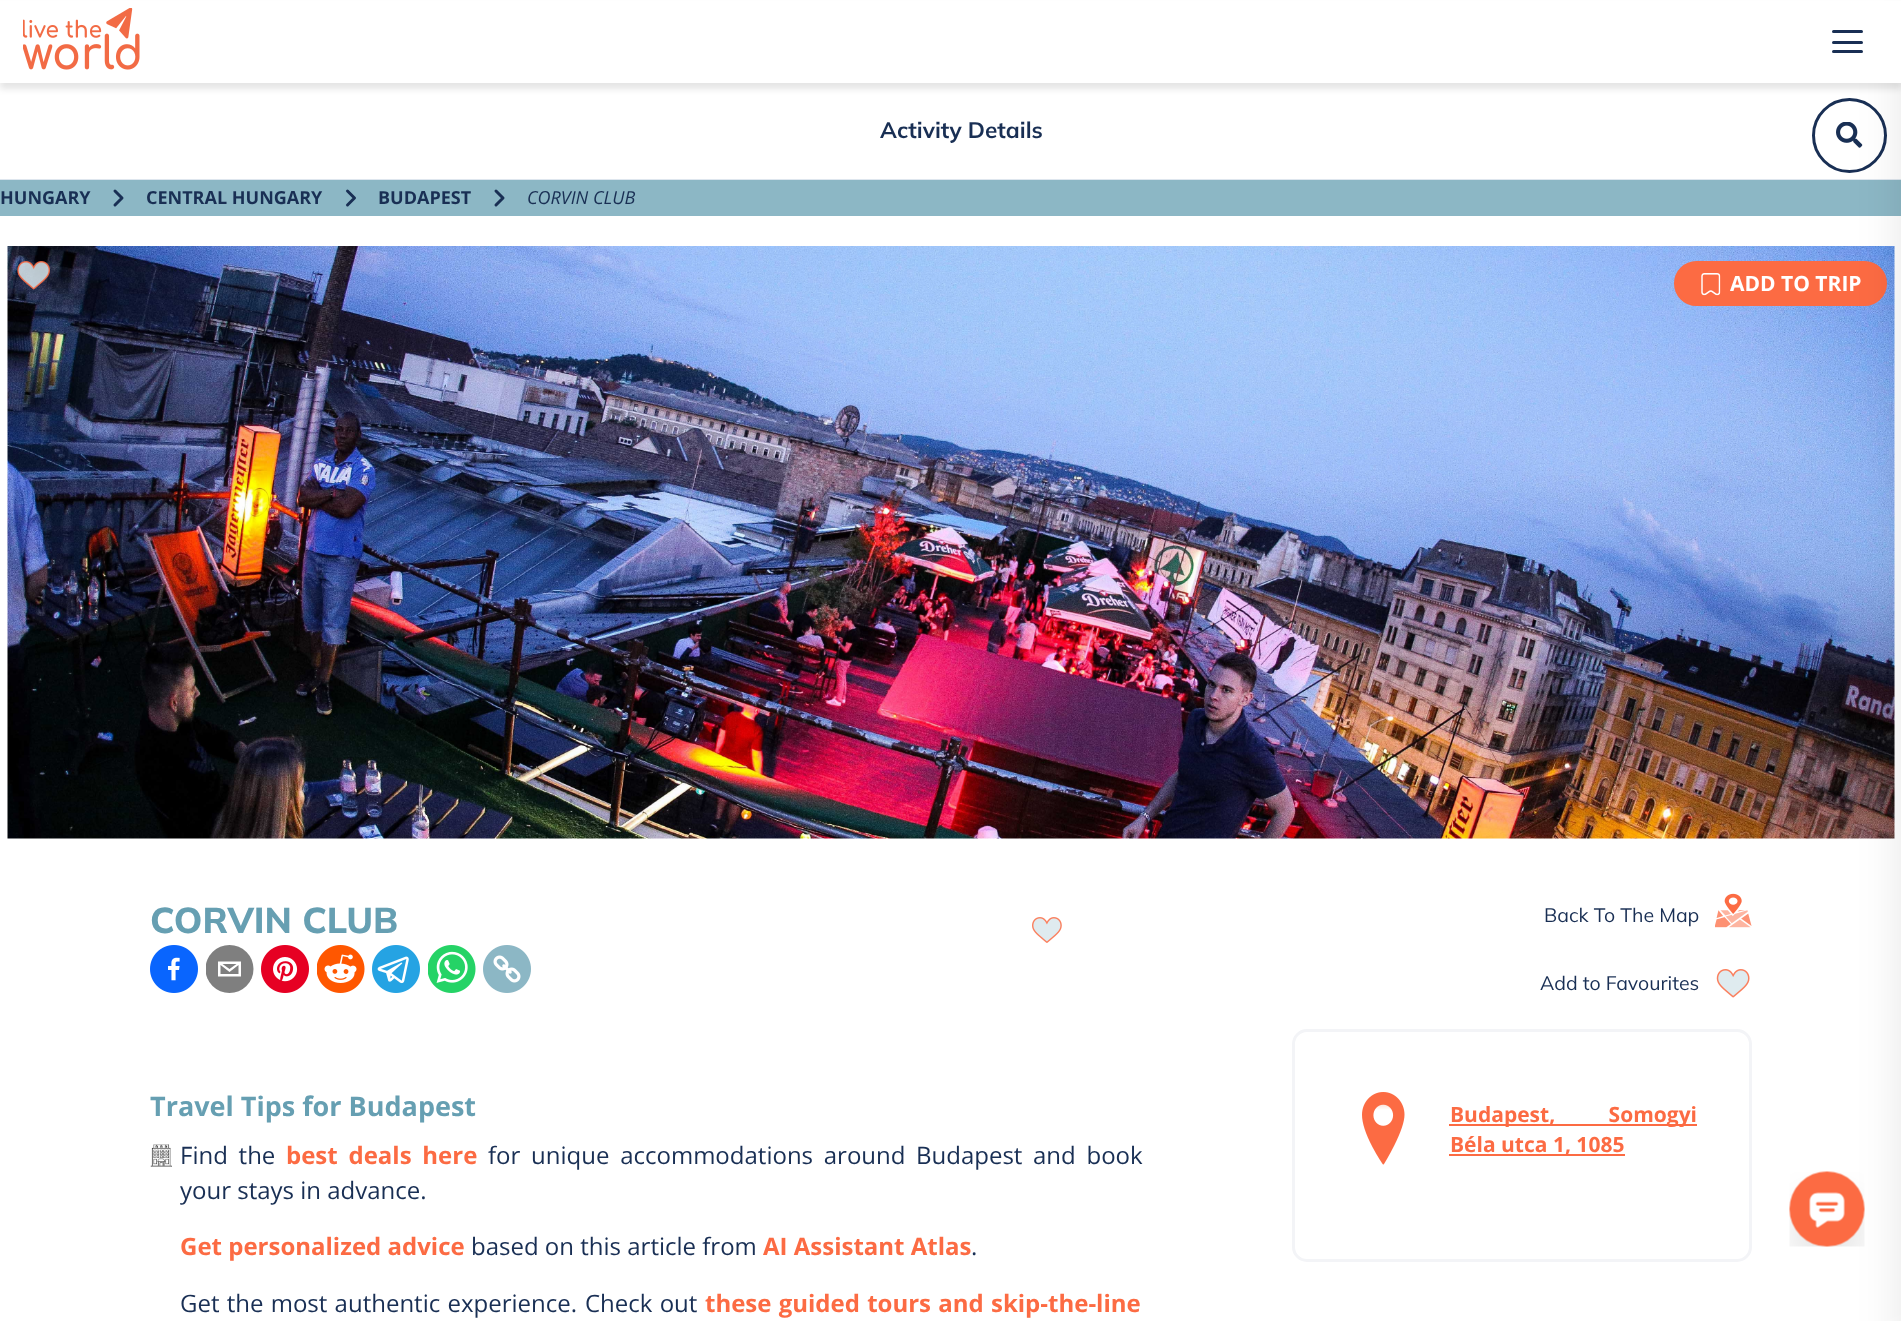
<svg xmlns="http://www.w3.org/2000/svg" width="1901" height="1321">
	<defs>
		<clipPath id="clip1"><rect x="206" y="945" width="48" height="48" /></clipPath>
	</defs>
	<rect width="100%" height="100%" fill="#FFFFFF" />
	<circle cx="1849.5" cy="135.5" r="36" fill="none" stroke="#192F54" stroke-width="3" />
	<rect x="0" y="6" width="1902" height="83" fill="#000000" fill-opacity="0.1" filter="blur(3px)" />
	<rect x="0" y="179" width="1901" height="1" fill="#DEE6EE" />
	<image x="1836" y="122" width="27" height="26" href="assets/img2.png" />
	<rect x="0" y="180" width="1901" height="36" fill="#8CB7C5" />
	<image x="7" y="246" width="1888" height="593" href="assets/img3.png" />
	<rect x="1675.5" y="262.5" width="210" height="42" rx="21" fill="#FC6B43" stroke="#FC6B43" stroke-width="3" />
	<rect x="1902" y="30" width="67" height="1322" fill="#000000" fill-opacity="0.1" filter="blur(22.5px)" />
	<rect x="0" y="1" width="1901" height="82" fill="#FFFFFF" />
	<image x="23" y="8" width="117" height="62" href="assets/img1.png" />
	<rect x="1832" y="30" width="31" height="3" rx="1.5" fill="#192F54" />
	<rect x="1832" y="41" width="31" height="3" rx="1.5" fill="#192F54" />
	<rect x="1832" y="50" width="31" height="3" rx="1.5" fill="#192F54" />
	<text x="880" y="138" font-family="Mulish" font-size="22.5" font-weight="700" fill="#192F54">Activity Details</text>
	<text x="0" y="204" font-family="Open Sans" font-size="18" font-weight="700" fill="#192F54">HUNGARY</text>
	<path d="M115 205L122 198L115 191" fill="none" stroke="#192F54" stroke-width="3" stroke-linecap="round" stroke-linejoin="round" />
	<text x="146" y="204" font-family="Open Sans" font-size="18" font-weight="700" fill="#192F54">CENTRAL HUNGARY</text>
	<path d="M347.5 205L354.5 198L347.5 191" fill="none" stroke="#192F54" stroke-width="3" stroke-linecap="round" stroke-linejoin="round" />
	<text x="378" y="204" font-family="Open Sans" font-size="18" font-weight="700" fill="#192F54">BUDAPEST</text>
	<path d="M496 205L503 198L496 191" fill="none" stroke="#192F54" stroke-width="3" stroke-linecap="round" stroke-linejoin="round" />
	<text x="527" y="204" font-family="Open Sans" font-size="18" font-style="italic" fill="#192F54">CORVIN CLUB</text>
	<image x="17" y="261" width="33" height="29" href="assets/img4.png" />
	<image x="1701" y="273" width="20" height="23" href="assets/img5.png" />
	<text x="1730" y="291" font-family="Open Sans" font-size="21" font-weight="700" fill="#FFFFFF">ADD TO TRIP</text>
	<text x="150" y="933" font-family="Mulish" font-size="36" font-weight="800" fill="#669FB2">CORVIN CLUB</text>
	<image x="150" y="945" width="48" height="48" href="assets/img6.png" />
	<g clip-path="url(#clip1)">
		<circle cx="229.5" cy="969" r="24" fill="#7F7F7F" />
	</g>
	<path d="M218 961.5V976.5H241V961.5ZM236.5 964L229.5 969L222.5 964ZM220.5 974V965L229.5 972L238.5 965V974Z" fill="#FFFFFF" />
	<image x="261" y="945" width="48" height="48" href="assets/img7.png" />
	<image x="317" y="945" width="48" height="48" href="assets/img8.png" />
	<image x="372" y="945" width="48" height="48" href="assets/img9.png" />
	<image x="428" y="945" width="48" height="48" href="assets/img10.png" />
	<image x="483" y="945" width="48" height="48" href="assets/img11.png" />
	<image x="1032" y="917" width="30" height="26" href="assets/img12.png" />
	<text x="1544" y="922" font-family="Mulish" font-size="19.5" fill="#192F54">Back To The Map</text>
	<image x="1715" y="893" width="37" height="35" href="assets/img13.png" />
	<text x="1540" y="990" font-family="Mulish" font-size="19.5" fill="#192F54">Add to Favourites</text>
	<image x="1716" y="969" width="34" height="29" href="assets/img14.png" />
	<text x="150" y="1116" font-family="Open Sans" font-size="27" font-weight="700" fill="#669FB2">Travel Tips for Budapest</text>
	<image x="150" y="1144" width="22" height="23" href="assets/img15.png" />
	<text x="180" y="1164" word-spacing="4.5" font-family="Open Sans" font-size="24" fill="#192F54">Find the</text>
	<text x="286" y="1164" word-spacing="4.5" font-family="Open Sans" font-size="24" font-weight="700" fill="#FC6B43">best deals here</text>
	<g font-family="Open Sans" font-size="24" fill="#192F54">
		<text x="488" y="1164" word-spacing="4.5">for unique accommodations around</text>
		<text x="916" y="1164">Budapest</text>
		<text x="1033" y="1164" word-spacing="4.5">and book</text>
		<text x="180" y="1199">your stays in advance.</text>
	</g>
	<text x="180" y="1255" font-family="Open Sans" font-size="24" font-weight="700" fill="#FC6B43">Get personalized advice</text>
	<text x="471" y="1255" font-family="Open Sans" font-size="24" fill="#192F54">based on this article from</text>
	<text x="763" y="1255" font-family="Open Sans" font-size="24" font-weight="700" fill="#FC6B43">AI Assistant Atlas</text>
	<g font-family="Open Sans" font-size="24" fill="#192F54">
		<text x="971" y="1255">.</text>
		<text x="180" y="1312" word-spacing="1">Get the most authentic experience.</text>
		<text x="585" y="1312" word-spacing="1">Check out</text>
	</g>
	<text x="705" y="1312" word-spacing="1" font-family="Open Sans" font-size="24" font-weight="700" fill="#FC6B43">these guided tours and skip-the-line</text>
	<rect x="1293.5" y="1030.5" width="457" height="230" rx="13.5" fill="none" stroke="#F3F4F7" stroke-width="3" />
	<image x="1362" y="1092" width="43" height="73" href="assets/img16.png" />
	<rect x="1449" y="1124" width="248" height="2" fill="#FC6B43" />
	<text x="1450" y="1122" word-spacing="48" font-family="Open Sans" font-size="21" font-weight="700" fill="#FC6B43">Budapest, Somogyi</text>
	<rect x="1449" y="1154" width="176" height="2" fill="#FC6B43" />
	<text x="1450" y="1152" font-family="Open Sans" font-size="21" font-weight="700" fill="#FC6B43">Béla utca 1, 1085</text>
	<image x="1789" y="1171" width="76" height="76" href="assets/img17.png" />
</svg>
